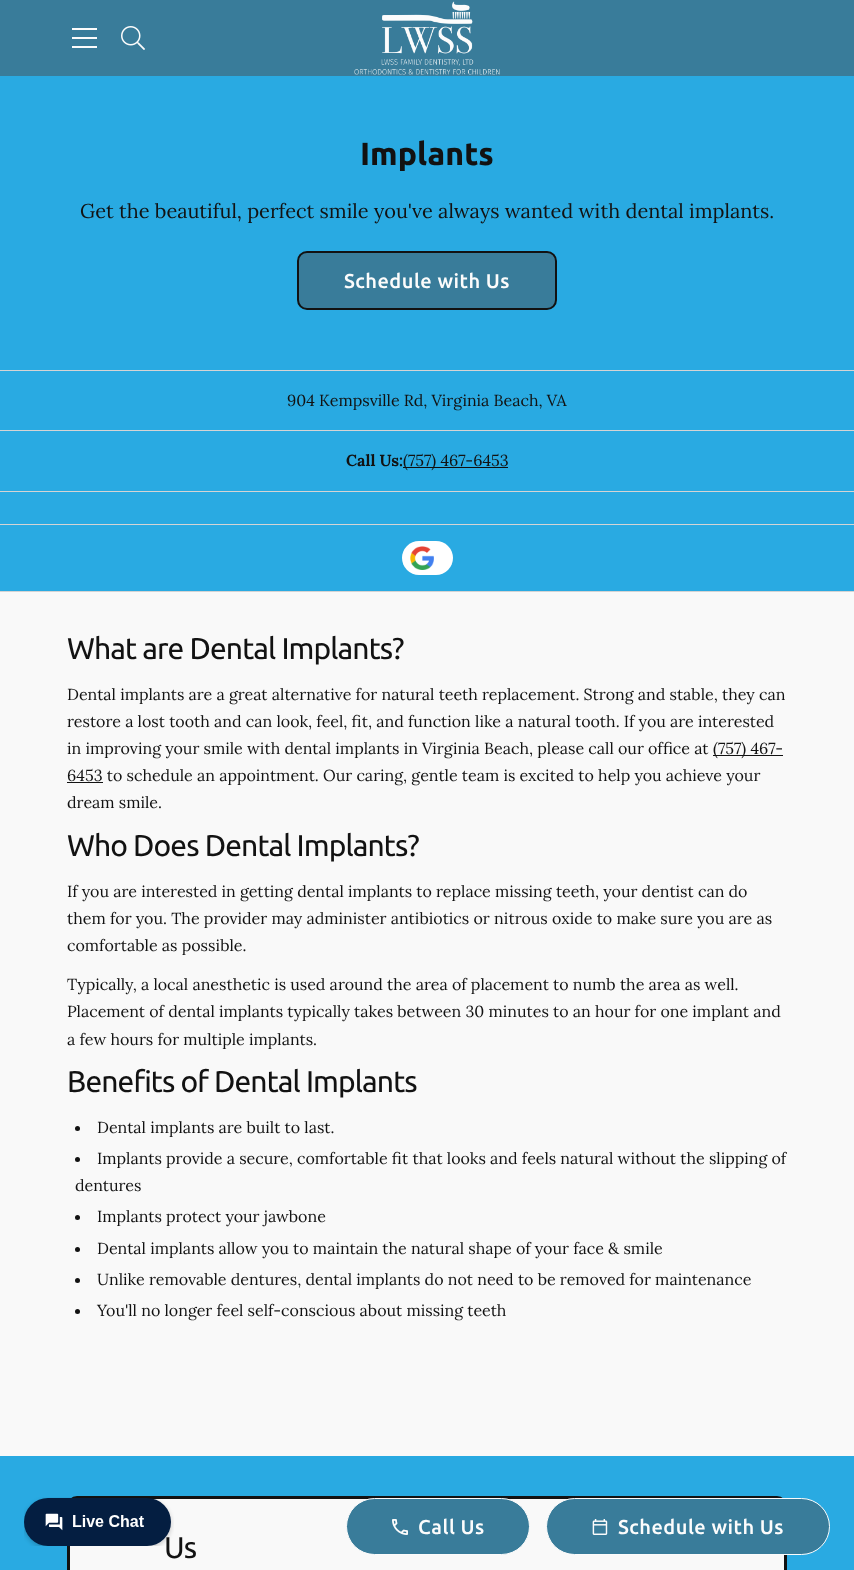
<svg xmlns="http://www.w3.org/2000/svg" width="854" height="1570">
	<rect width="100%" height="100%" fill="#F9F9F9" />
	<rect x="0" y="0" width="854" height="76" fill="#397C9A" />
	<rect x="72" y="28" width="25" height="2" fill="#FCFCFC" />
	<rect x="72" y="37" width="25" height="2" fill="#FCFCFC" />
	<rect x="72" y="46" width="25" height="2" fill="#FCFCFC" />
	<image x="121" y="26" width="24" height="24" href="assets/img1.png" />
	<image x="354" y="1" width="146" height="74" href="assets/img2.png" />
	<rect x="0" y="76" width="854" height="294" fill="#29AAE2" />
	<text x="360" y="165" font-family="Ubuntu" font-size="32" font-weight="700" fill="#121212">Implants</text>
	<text x="80" y="218" font-family="Lora" font-size="20" fill="#121212">Get the beautiful, perfect smile you've always wanted with dental implants.</text>
	<rect x="298" y="252" width="258" height="57" rx="9" fill="#397C9A" stroke="#121212" stroke-width="2" />
	<text x="344" y="288" font-family="Ubuntu" font-size="20" font-weight="500" letter-spacing="0.5" fill="#FCFCFC">Schedule with Us</text>
	<rect x="0" y="371" width="854" height="220" fill="#29AAE2" />
	<rect x="0" y="370" width="854" height="1" fill="#D4D4D4" />
	<rect x="0" y="591" width="854" height="1" fill="#D4D4D4" />
	<text x="287" y="406" font-family="Lora" font-size="16" fill="#121212">904 Kempsville Rd, Virginia Beach, VA</text>
	<rect x="0" y="430" width="854" height="1" fill="#D4D4D4" />
	<text x="346" y="466" font-family="Lora" font-size="16" font-weight="700" fill="#121212">Call Us:</text>
	<rect x="403" y="467" width="105" height="1" fill="#0F0F0F" />
	<text x="403" y="466" font-family="Lora" font-size="16" fill="#121212">(757) 467-6453</text>
	<rect x="0" y="491" width="854" height="1" fill="#D4D4D4" />
	<rect x="0" y="524" width="854" height="1" fill="#D4D4D4" />
	<rect x="402" y="541" width="51" height="34" rx="17" fill="#FFFFFF" />
	<image x="410" y="546" width="24" height="24" href="assets/img3.png" />
	<text x="67" y="659" font-family="Ubuntu" font-size="30" letter-spacing="-0.9" fill="#121212">What are Dental Implants?</text>
	<g font-family="Lora" font-size="16" fill="#121212">
		<text x="67" y="700">Dental implants are a great alternative for natural teeth replacement. Strong and stable, they can</text>
		<text x="67" y="727">restore a lost tooth and can look, feel, fit, and function like a natural tooth. If you are interested</text>
		<text x="67" y="754">in improving your smile with dental implants in Virginia Beach, please call our office at</text>
	</g>
	<rect x="713" y="755" width="70" height="1" fill="#121212" />
	<text x="713" y="754" font-family="Lora" font-size="16" fill="#121212">(757) 467-</text>
	<rect x="67" y="782" width="36" height="1" fill="#121212" />
	<g font-family="Lora" font-size="16" fill="#121212">
		<text x="67" y="781">6453 to schedule an appointment. Our caring, gentle team is excited to help you achieve your</text>
		<text x="67" y="808">dream smile.</text>
	</g>
	<text x="67" y="856" font-family="Ubuntu" font-size="30" letter-spacing="-0.9" fill="#121212">Who Does Dental Implants?</text>
	<g font-family="Lora" font-size="16" fill="#121212">
		<text x="67" y="897">If you are interested in getting dental implants to replace missing teeth, your dentist can do</text>
		<text x="67" y="924">them for you. The provider may administer antibiotics or nitrous oxide to make sure you are as</text>
		<text x="67" y="951">comfortable as possible.</text>
		<text x="67" y="990">Typically, a local anesthetic is used around the area of placement to numb the area as well.</text>
		<text x="67" y="1017">Placement of dental implants typically takes between 30 minutes to an hour for one implant and</text>
		<text x="67" y="1045">a few hours for multiple implants.</text>
	</g>
	<text x="67" y="1092" font-family="Ubuntu" font-size="30" letter-spacing="-0.9" fill="#121212">Benefits of Dental Implants</text>
	<circle cx="77.5" cy="1128.5" r="2.5" fill="#121212" />
	<text x="97" y="1133" font-family="Lora" font-size="16" fill="#121212">Dental implants are built to last.</text>
	<circle cx="77.5" cy="1159.5" r="2.5" fill="#121212" />
	<g font-family="Lora" font-size="16" fill="#121212">
		<text x="97" y="1164">Implants provide a secure, comfortable fit that looks and feels natural without the slipping of</text>
		<text x="75" y="1191">dentures</text>
	</g>
	<circle cx="77.5" cy="1217.5" r="2.5" fill="#121212" />
	<text x="97" y="1222" font-family="Lora" font-size="16" fill="#121212">Implants protect your jawbone</text>
	<circle cx="77.5" cy="1249.5" r="2.5" fill="#121212" />
	<text x="97" y="1254" font-family="Lora" font-size="16" fill="#121212">Dental implants allow you to maintain the natural shape of your face &amp; smile</text>
	<circle cx="77.5" cy="1280.5" r="2.5" fill="#121212" />
	<text x="97" y="1285" font-family="Lora" font-size="16" fill="#121212">Unlike removable dentures, dental implants do not need to be removed for maintenance</text>
	<circle cx="77.5" cy="1311.5" r="2.5" fill="#121212" />
	<text x="97" y="1316" font-family="Lora" font-size="16" fill="#121212">You'll no longer feel self-conscious about missing teeth</text>
	<rect x="0" y="1456" width="854" height="114" fill="#29AAE2" />
	<rect x="68.5" y="1497.5" width="717" height="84" rx="8.5" fill="#F9F9F9" stroke="#121212" stroke-width="3" />
	<rect x="346.5" y="1498.5" width="183" height="56" rx="28" fill="#397C9A" stroke="#FCFCFC" />
	<image x="392" y="1519" width="16" height="16" href="assets/img4.png" />
	<text x="418" y="1534" font-family="Ubuntu" font-size="20" font-weight="500" letter-spacing="0.5" fill="#FCFCFC">Call Us</text>
	<rect x="546.5" y="1498.5" width="283" height="56" rx="28" fill="#397C9A" stroke="#FCFCFC" />
	<image x="592" y="1519" width="16" height="16" href="assets/img5.png" />
	<text x="618" y="1534" font-family="Ubuntu" font-size="20" font-weight="500" letter-spacing="0.5" fill="#FCFCFC">Schedule with Us</text>
	<text x="164" y="1558" font-family="Ubuntu" font-size="30" letter-spacing="-0.9" fill="#121212">Us</text>
	<image x="24" y="1497" width="150" height="49" href="assets/img6.png" />
</svg>
